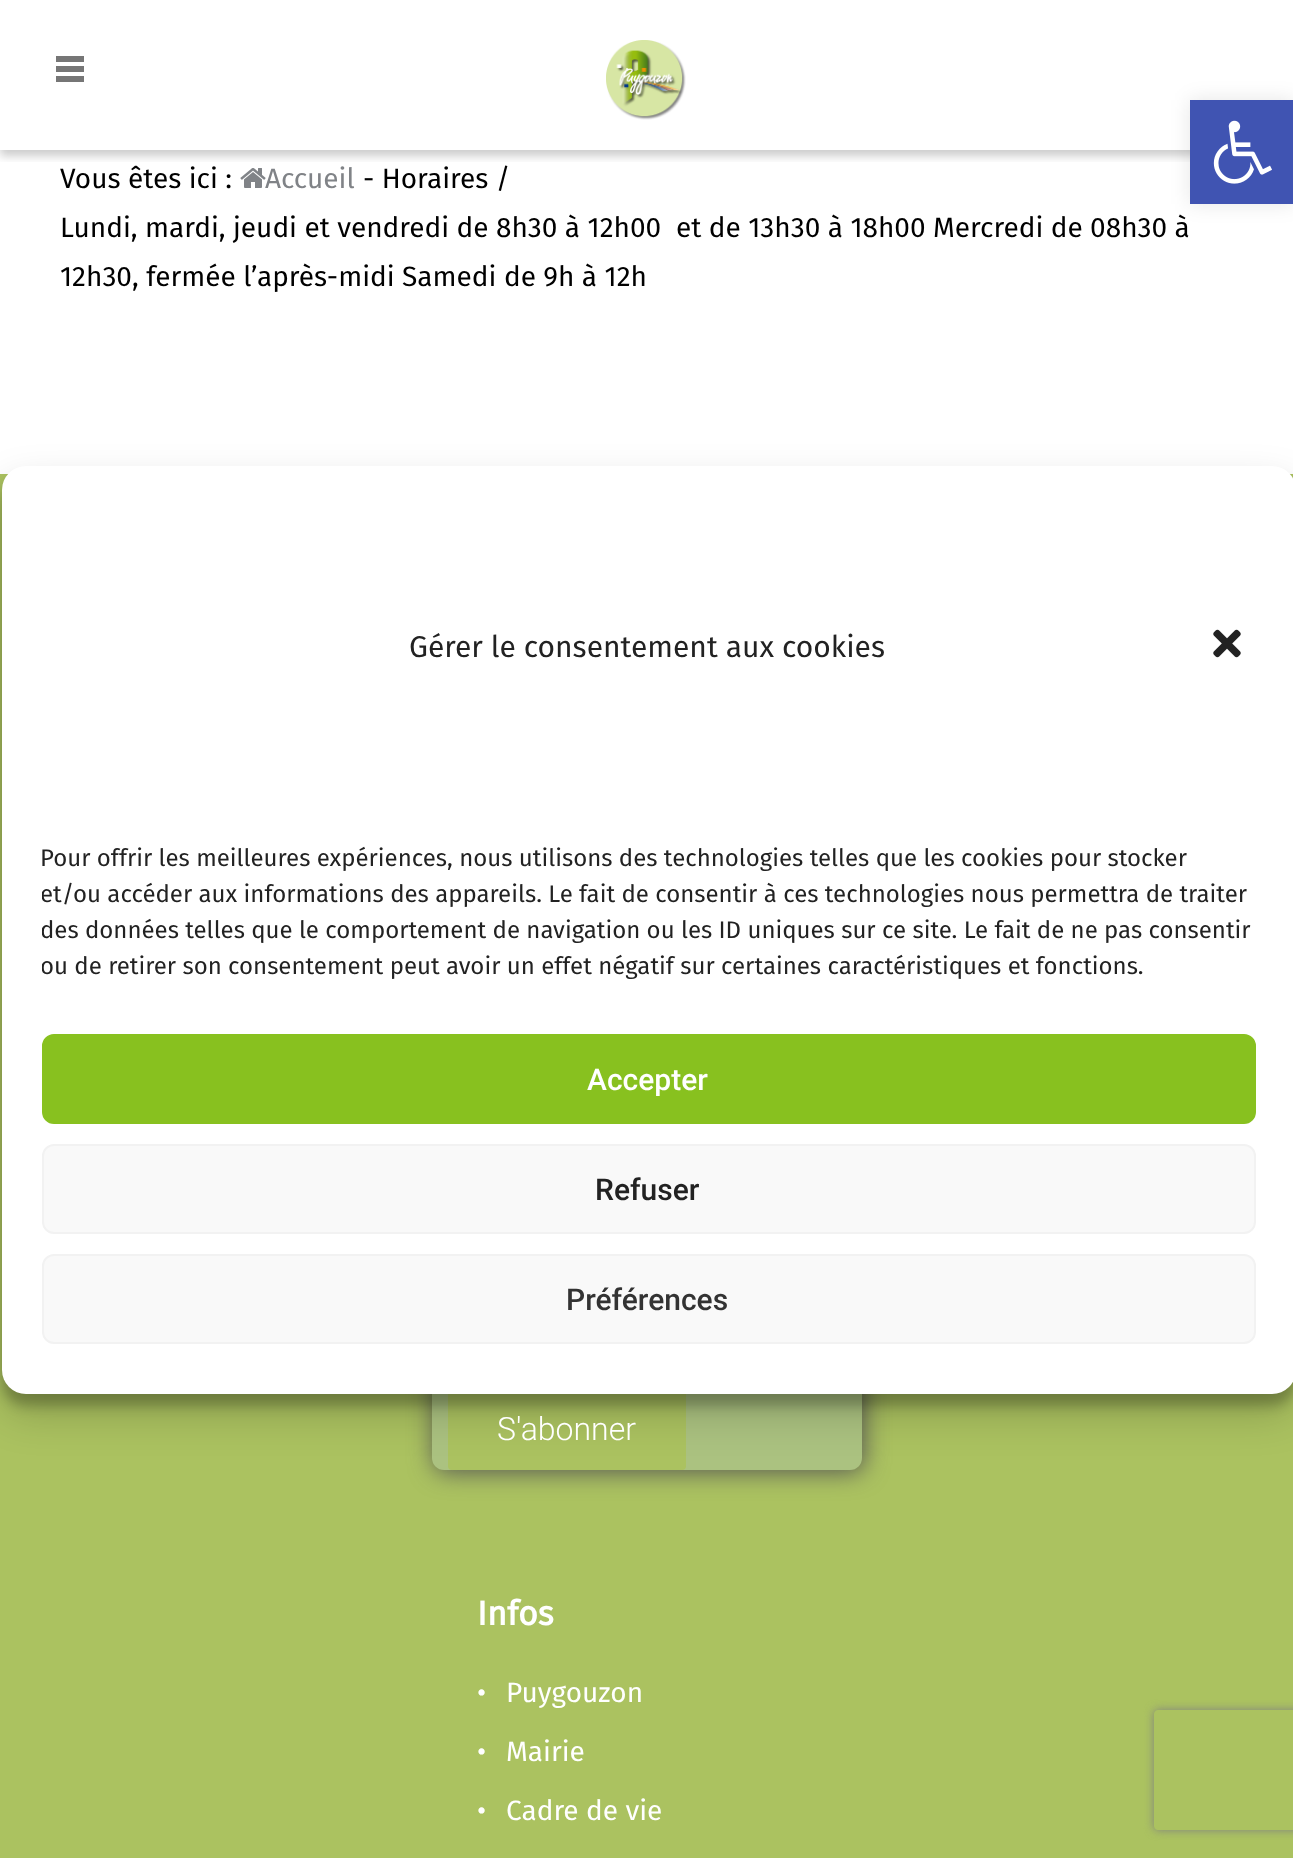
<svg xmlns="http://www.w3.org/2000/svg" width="1293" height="1858">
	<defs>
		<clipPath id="clip1"><rect x="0" y="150" width="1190" height="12" /></clipPath>
		<clipPath id="clip2"><rect x="42" y="840" width="1214" height="154" /></clipPath>
		<clipPath id="clip3"><path d="M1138 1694H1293V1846H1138ZM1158 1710H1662C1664 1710 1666 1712 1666 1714V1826C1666 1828 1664 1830 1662 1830H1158C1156 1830 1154 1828 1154 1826V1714C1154 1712 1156 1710 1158 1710Z" clip-rule="evenodd" /></clipPath>
	</defs>
	<rect width="100%" height="100%" fill="#FFFFFF" />
	<text x="265" y="188" font-family="Fira Sans" font-size="28" fill="#808387">Accueil</text>
	<image x="240" y="168" width="26" height="20" href="assets/img2.png" />
	<g clip-path="url(#clip1)">
		<rect x="0" y="6" width="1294" height="150" fill="#000000" fill-opacity="0.2" filter="blur(5px)" />
	</g>
	<rect x="56" y="66" width="28" height="6" fill="#767676" />
	<rect x="56" y="56" width="28" height="6" fill="#767676" />
	<rect x="56" y="76" width="28" height="6" fill="#767676" />
	<image x="606" y="40" width="80" height="80" href="assets/img1.png" />
	<g font-family="Fira Sans" font-size="28" fill="#000000">
		<text x="60" y="188">Vous êtes ici :</text>
		<text x="363" y="188">- Horaires /</text>
		<text x="60" y="237" xml:space="preserve">Lundi, mardi, jeudi et vendredi de 8h30 à 12h00  et de 13h30 à 18h00 Mercredi de 08h30 à</text>
		<text x="60" y="286">12h30, fermée l’après-midi Samedi de 9h à 12h</text>
	</g>
	<rect x="1190" y="100" width="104" height="104" fill="#000000" fill-opacity="0.1" filter="blur(10px)" />
	<rect x="1190" y="100" width="103" height="104" fill="#4054B2" />
	<image x="1213" y="120" width="59" height="64" href="assets/img3.png" />
	<rect x="0" y="474" width="1293" height="1384" fill="#ABC260" />
	<rect x="434" y="1148" width="430" height="324" rx="12" fill="#555555" filter="blur(12px)" />
	<rect x="432" y="1146" width="430" height="324" rx="12" fill="#ABC280" />
	<rect x="448" y="1390" width="238" height="80" rx="4" fill="#ABC260" />
	<rect x="2" y="478" width="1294" height="928" rx="24" fill="#000000" fill-opacity="0.23" filter="blur(6px)" />
	<rect x="2" y="486" width="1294" height="928" rx="24" fill="#000000" fill-opacity="0.19" filter="blur(20px)" />
	<rect x="2" y="466" width="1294" height="928" rx="24" fill="#FFFFFF" />
	<text x="409" y="657" font-family="Fira Sans" font-size="30" fill="#222222">Gérer le consentement aux cookies</text>
	<image x="1213" y="629" width="28" height="29" href="assets/img4.png" />
	<text x="40" y="866" font-family="Fira Sans" font-size="24" fill="#222222">Pour offrir les meilleures expériences, nous utilisons des technologies telles que les cookies pour stocker</text>
	<g clip-path="url(#clip2)">
		<g font-family="Fira Sans" font-size="24" fill="#222222">
			<text x="40" y="902">et/ou accéder aux informations des appareils. Le fait de consentir à ces technologies nous permettra de traiter</text>
			<text x="40" y="938">des données telles que le comportement de navigation ou les ID uniques sur ce site. Le fait de ne pas consentir</text>
			<text x="40" y="974">ou de retirer son consentement peut avoir un effet négatif sur certaines caractéristiques et fonctions.</text>
		</g>
	</g>
	<rect x="43" y="1035" width="1212" height="88" rx="11" fill="#88C11F" stroke="#88C11F" stroke-width="2" />
	<text x="587" y="1090" font-family="Roboto" font-size="30" font-weight="500" fill="#FFFFFF">Accepter</text>
	<rect x="43" y="1145" width="1212" height="88" rx="11" fill="#F9F9F9" stroke="#F2F2F2" stroke-width="2" />
	<text x="595" y="1200" font-family="Roboto" font-size="30" font-weight="500" fill="#222222">Refuser</text>
	<rect x="43" y="1255" width="1212" height="88" rx="11" fill="#F9F9F9" stroke="#F2F2F2" stroke-width="2" />
	<text x="566" y="1310" font-family="Roboto" font-size="30" font-weight="500" fill="#333333">Préférences</text>
	<text x="497" y="1440" font-family="Roboto" font-size="32" font-weight="300" fill="#FFFFFF">S'abonner</text>
	<text x="477" y="1625" font-family="Fira Sans" font-size="34" font-weight="700" fill="#FFFFFF">Infos</text>
	<g font-family="Fira Sans" font-size="28" fill="#FFFFFF">
		<text x="477" y="1702">•</text>
		<text x="506" y="1702">Puygouzon</text>
		<text x="477" y="1761">•</text>
		<text x="506" y="1761">Mairie</text>
		<text x="477" y="1820">•</text>
		<text x="506" y="1820">Cadre de vie</text>
	</g>
	<g clip-path="url(#clip3)">
		<rect x="1154" y="1710" width="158" height="120" rx="4" fill="#808080" filter="blur(5px)" />
	</g>
</svg>
